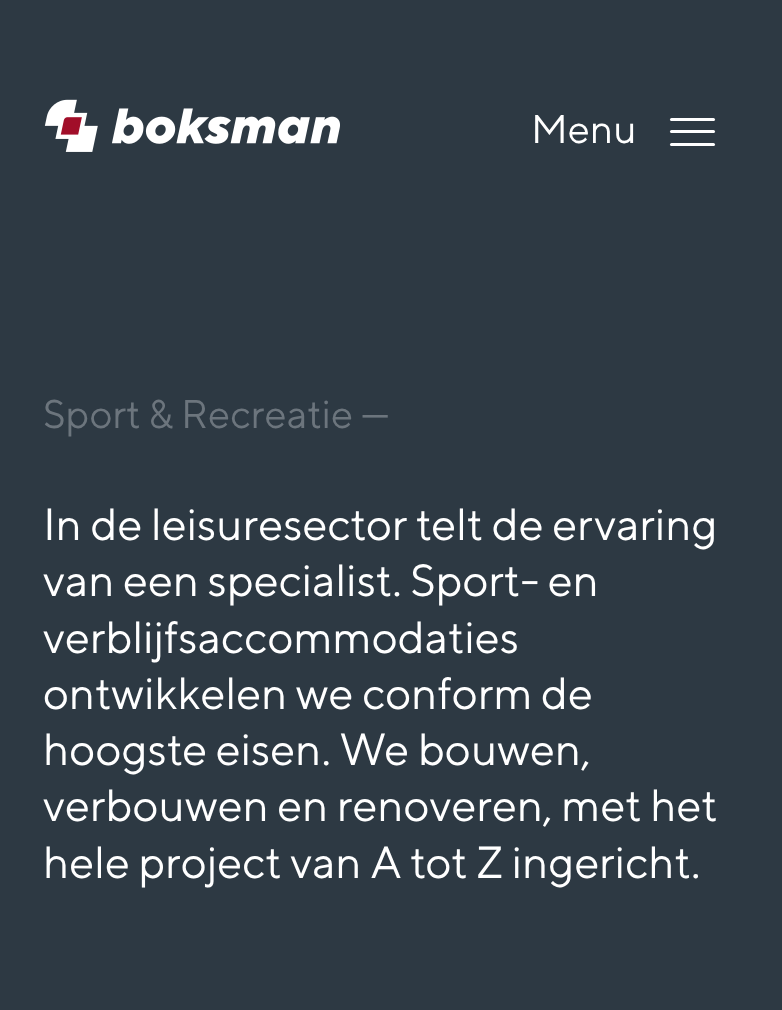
<svg xmlns="http://www.w3.org/2000/svg" width="782" height="1010">
	<rect width="100%" height="100%" fill="#2D3943" />
	<image x="44" y="99" width="296" height="53" href="assets/img1.png" />
	<text x="531" y="143" font-family="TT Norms" font-size="40" fill="#FFFFFF">Menu</text>
	<rect x="670" y="130" width="45" height="3" rx="1.5" fill="#FFFFFF" />
	<rect x="670" y="118" width="45" height="3" rx="1.5" fill="#FFFFFF" />
	<rect x="670" y="143" width="45" height="3" rx="1.5" fill="#FFFFFF" />
	<text x="43" y="428" font-family="TT Norms" font-size="40" fill="#6C757D">Sport &amp; Recreatie —</text>
	<g font-family="TT Norms" font-size="45" fill="#FFFFFF">
		<text x="43" y="540">In de leisuresector telt de ervaring</text>
		<text x="43" y="596">van een specialist. Sport- en</text>
		<text x="43" y="653">verblijfsaccommodaties</text>
		<text x="43" y="709">ontwikkelen we conform de</text>
		<text x="43" y="765">hoogste eisen. We bouwen,</text>
		<text x="43" y="821">verbouwen en renoveren, met het</text>
		<text x="43" y="878">hele project van A tot Z ingericht.</text>
	</g>
</svg>
